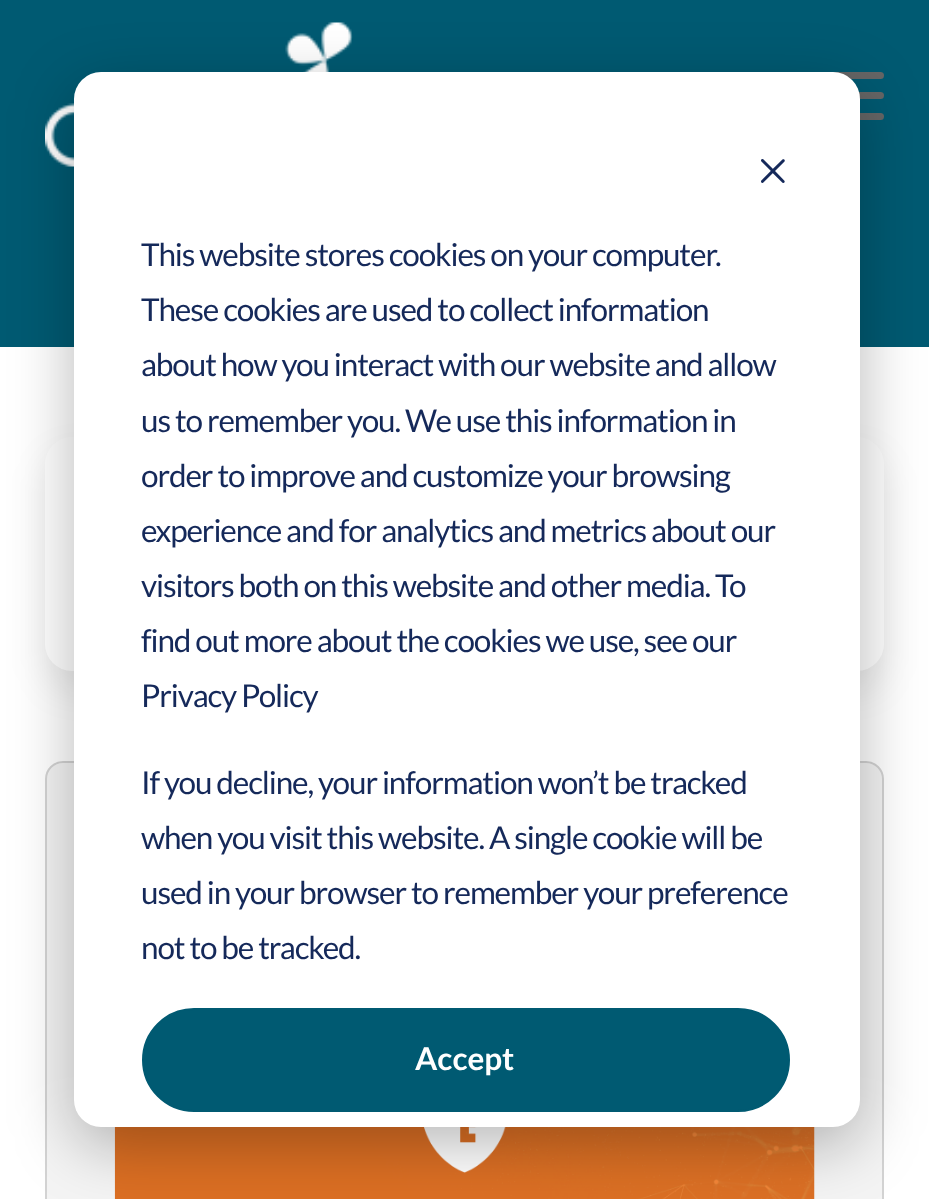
<svg xmlns="http://www.w3.org/2000/svg" width="929" height="1199">
	<rect width="100%" height="100%" fill="#005A72" />
	<image x="45" y="22" width="308" height="145" href="assets/img1.png" />
	<rect x="812" y="92" width="72" height="7" rx="3.5" fill="#666666" />
	<rect x="812" y="72" width="72" height="7" rx="3.5" fill="#666666" />
	<rect x="812" y="113" width="72" height="7" rx="3.5" fill="#666666" />
	<rect x="0" y="347" width="929" height="852" fill="#FFFFFF" />
	<rect x="45" y="455" width="839" height="234" rx="27" fill="#000000" fill-opacity="0.08" filter="blur(18px)" />
	<rect x="45" y="437" width="839" height="234" rx="27" fill="#FFFFFF" />
	<rect x="46" y="762" width="837" height="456" rx="17" fill="#F4F4F4" stroke="#D3D3D3" stroke-width="2" />
	<image x="114" y="1127" width="701" height="72" href="assets/img2.png" />
	<rect x="74" y="90" width="786" height="1055" rx="27" fill="#000000" fill-opacity="0.28" filter="blur(31.5px)" />
	<rect x="74" y="72" width="786" height="1055" rx="27" fill="#FFFFFF" />
	<image x="761" y="159" width="24" height="24" href="assets/img3.png" />
	<g font-family="Lato" font-size="31.5" letter-spacing="-1.12" fill="#15295A">
		<text x="141" y="266">This website stores cookies on your computer.</text>
		<text x="141" y="321">These cookies are used to collect information</text>
		<text x="141" y="376">about how you interact with our website and allow</text>
		<text x="141" y="432">us to remember you. We use this information in</text>
		<text x="141" y="487">order to improve and customize your browsing</text>
		<text x="141" y="542">experience and for analytics and metrics about our</text>
		<text x="141" y="597">visitors both on this website and other media. To</text>
		<text x="141" y="652">find out more about the cookies we use, see our</text>
		<text x="141" y="707">Privacy Policy</text>
		<text x="141" y="794">If you decline, your information won’t be tracked</text>
		<text x="141" y="849">when you visit this website. A single cookie will be</text>
		<text x="141" y="904">used in your browser to remember your preference</text>
		<text x="141" y="959">not to be tracked.</text>
	</g>
	<rect x="143" y="1009" width="646" height="102" rx="51" fill="#005A72" stroke="#005A72" stroke-width="2" />
	<text x="415" y="1070" font-family="Lato" font-size="31.5" font-weight="700" fill="#FFFFFF">Accept</text>
</svg>
